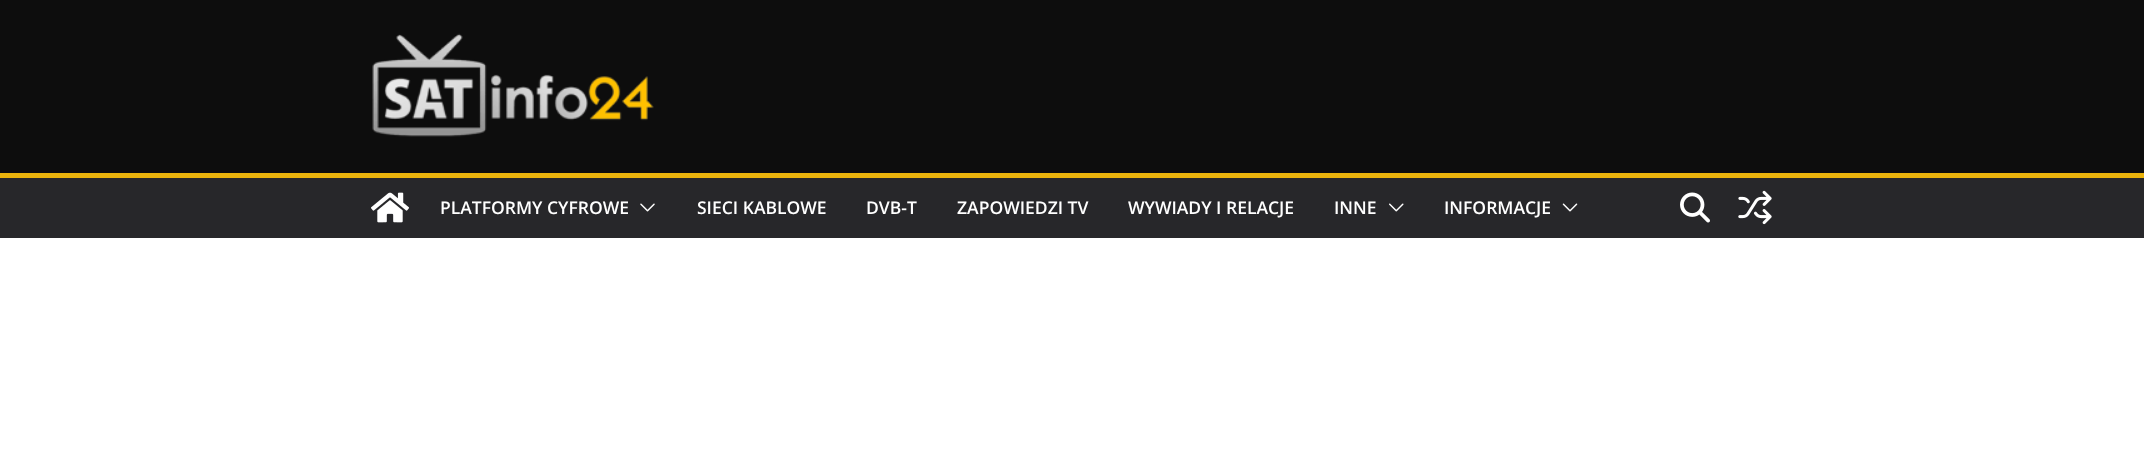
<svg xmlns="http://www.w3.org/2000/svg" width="2144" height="456">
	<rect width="100%" height="100%" fill="#FFFFFF" />
	<rect x="0" y="0" width="2144" height="173" fill="#0D0D0D" />
	<image x="372" y="33" width="282" height="104" href="assets/img1.png" />
	<rect x="0" y="178" width="2144" height="60" fill="#27272A" />
	<rect x="0" y="173" width="2144" height="5" fill="#EAB30C" />
	<image x="371" y="192" width="38" height="31" href="assets/img2.png" />
	<text x="440" y="214" font-family="Open Sans" font-size="17.5" font-weight="600" fill="#FFFFFF">PLATFORMY CYFROWE</text>
	<image x="640" y="203" width="15" height="9" href="assets/img3.png" />
	<g font-family="Open Sans" font-size="17.5" font-weight="600" fill="#FFFFFF">
		<text x="697" y="214">SIECI KABLOWE</text>
		<text x="866" y="214">DVB-T</text>
		<text x="957" y="214">ZAPOWIEDZI TV</text>
		<text x="1128" y="214">WYWIADY I RELACJE</text>
		<text x="1334" y="214">INNE</text>
	</g>
	<image x="1389" y="203" width="15" height="9" href="assets/img4.png" />
	<text x="1444" y="214" font-family="Open Sans" font-size="17.5" font-weight="600" fill="#FFFFFF">INFORMACJE</text>
	<image x="1562" y="203" width="16" height="9" href="assets/img5.png" />
	<image x="1680" y="192" width="30" height="31" href="assets/img6.png" />
	<image x="1738" y="190" width="34" height="35" href="assets/img7.png" />
</svg>
